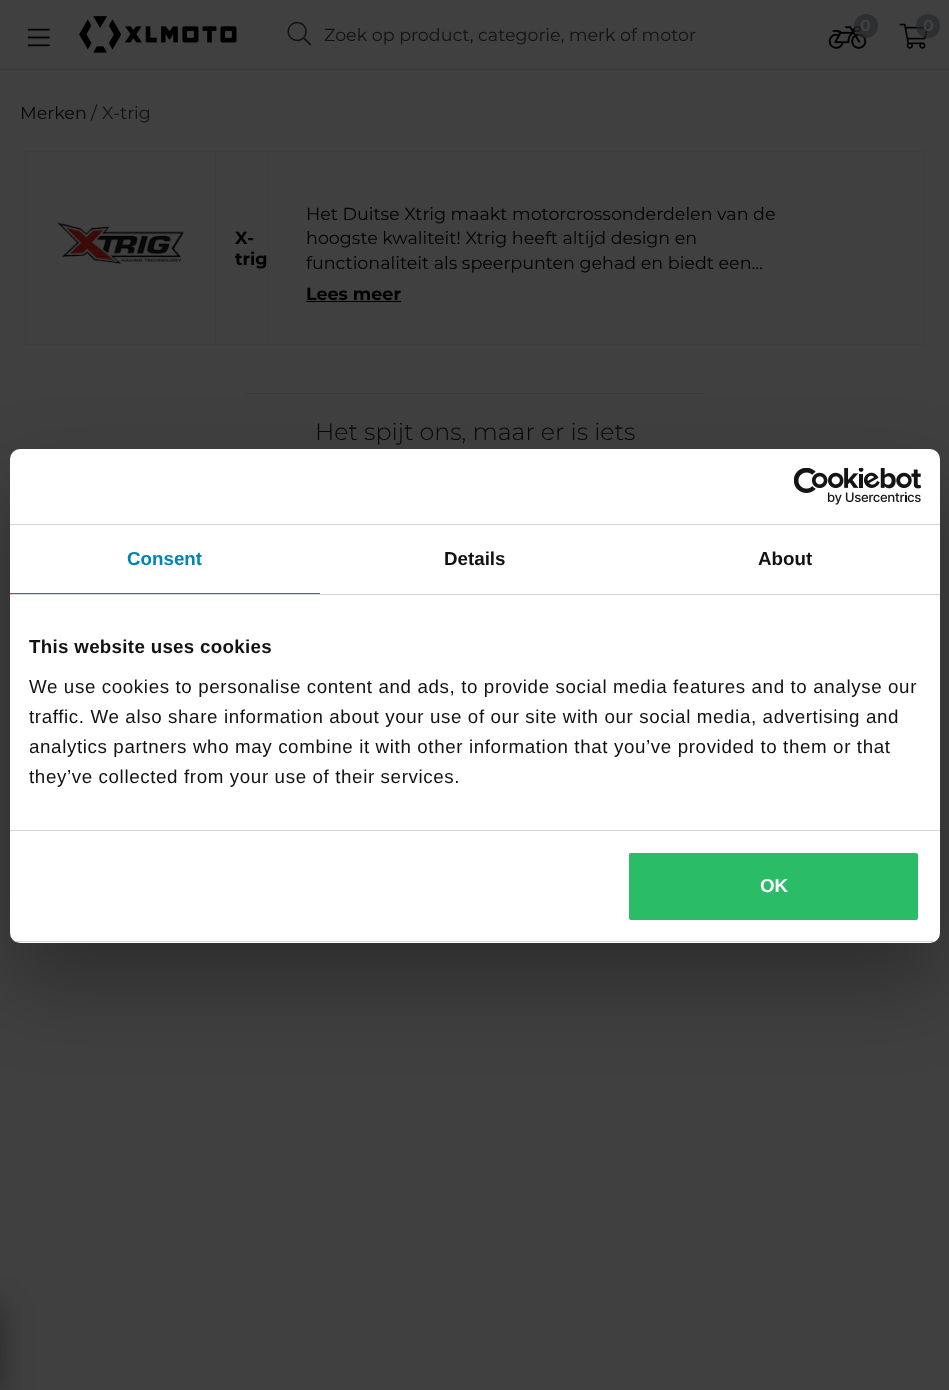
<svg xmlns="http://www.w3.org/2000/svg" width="949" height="1390">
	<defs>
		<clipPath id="clip1"><rect x="10" y="449" width="930" height="494" rx="10" /></clipPath>
	</defs>
	<rect width="100%" height="100%" fill="#404040" />
	<rect x="0" y="69" width="949" height="1" fill="#393939" />
	<image x="79" y="16" width="158" height="37" href="assets/img1.png" />
	<image x="828" y="26" width="39" height="23" href="assets/img2.png" />
	<circle cx="866" cy="26" r="12" fill="#26282A" fill-opacity="0.7" />
	<text x="860" y="31" font-family="Montserrat" font-size="16" font-weight="700" fill="#404040">0</text>
	<image x="899" y="23" width="29" height="26" href="assets/img3.png" />
	<circle cx="928" cy="26" r="12" fill="#26282A" fill-opacity="0.7" />
	<text x="923" y="31" font-family="Montserrat" font-size="16" font-weight="700" fill="#404040">0</text>
	<image x="27" y="28" width="23" height="19" href="assets/img4.png" />
	<image x="287" y="21" width="25" height="25" href="assets/img5.png" />
	<text x="324" y="41" font-family="Montserrat" font-size="17.5" fill="#111213">Zoek op product, categorie, merk of motor</text>
	<rect x="-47" y="1306" width="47" height="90" fill="#000000" fill-opacity="0.4" filter="blur(15.5px)" />
	<text x="20" y="119" font-family="Montserrat" font-size="17.5" fill="#080809">Merken</text>
	<g font-family="Montserrat" font-size="17.5" fill="#111213">
		<text x="91" y="119">/</text>
		<text x="102" y="119">X-trig</text>
	</g>
	<rect x="25.5" y="151.5" width="190" height="193" fill="none" stroke="#3D3D3D" />
	<image x="57" y="222" width="128" height="44" href="assets/img6.png" />
	<rect x="216" y="151" width="709" height="1" fill="#3D3D3D" />
	<rect x="268" y="151" width="1" height="194" fill="#3D3D3D" />
	<rect x="216" y="344" width="53" height="1" fill="#3D3D3D" />
	<g font-family="Montserrat" font-size="17.5" font-weight="700" fill="#000000">
		<text x="235" y="244">X-</text>
		<text x="235" y="265">trig</text>
	</g>
	<rect x="924" y="151" width="1" height="194" fill="#3D3D3D" />
	<rect x="269" y="344" width="656" height="1" fill="#3D3D3D" />
	<g font-family="Montserrat" font-size="17.5" fill="#000000">
		<text x="306" y="220">Het Duitse Xtrig maakt motorcrossonderdelen van de</text>
		<text x="306" y="244">hoogste kwaliteit! Xtrig heeft altijd design en</text>
		<text x="306" y="269">functionaliteit als speerpunten gehad en biedt een…</text>
	</g>
	<text x="306" y="300" font-family="Montserrat" font-size="17.5" font-weight="700" fill="#000000">Lees meer</text>
	<rect x="306" y="301" width="95" height="1" fill="#000000" />
	<rect x="246" y="393" width="458" height="1" fill="#383838" />
	<text x="315" y="440" font-family="Montserrat" font-size="23.75" font-weight="300" fill="#080809">Het spijt ons, maar er is iets</text>
	<rect x="10" y="489" width="930" height="494" rx="10" fill="#000000" fill-opacity="0.3" filter="blur(42.5px)" />
	<rect x="10" y="449" width="930" height="494" rx="10" fill="#FFFFFF" />
	<rect x="10" y="524" width="930" height="1" fill="#D6D6D6" />
	<image x="794" y="468" width="127" height="37" href="assets/img7.png" />
	<rect x="10" y="594" width="930" height="1" fill="#D6D6D6" />
	<rect x="10" y="593" width="310" height="1" fill="#0084B4" />
	<text x="127" y="565" font-family="Liberation Sans" font-size="18.75" font-weight="700" fill="#0084B4">Consent</text>
	<g font-family="Liberation Sans" font-size="18.75" font-weight="700" fill="#111213">
		<text x="444" y="565">Details</text>
		<text x="758" y="565">About</text>
	</g>
	<rect x="10" y="830" width="930" height="1" fill="#D6D6D6" />
	<text x="29" y="653" font-family="Liberation Sans" font-size="18.75" font-weight="700" letter-spacing="0.3" fill="#111213">This website uses cookies</text>
	<g font-family="Liberation Sans" font-size="18.75" letter-spacing="0.62" fill="#111213">
		<text x="29" y="693">We use cookies to personalise content and ads, to provide social media features and to analyse our</text>
		<text x="29" y="723">traffic. We also share information about your use of our site with our social media, advertising and</text>
		<text x="29" y="753">analytics partners who may combine it with other information that you’ve provided to them or that</text>
		<text x="29" y="783">they’ve collected from your use of their services.</text>
	</g>
	<g clip-path="url(#clip1)">
		<rect x="10" y="941" width="930" height="1" fill="#D6D6D6" />
	</g>
	<rect x="627.5" y="851.5" width="292" height="70" rx="3.5" fill="#2BBC68" stroke="#FFFFFF" stroke-width="3" />
	<text x="760" y="892" font-family="Liberation Sans" font-size="18.75" font-weight="700" fill="#FFFFFF">OK</text>
</svg>
